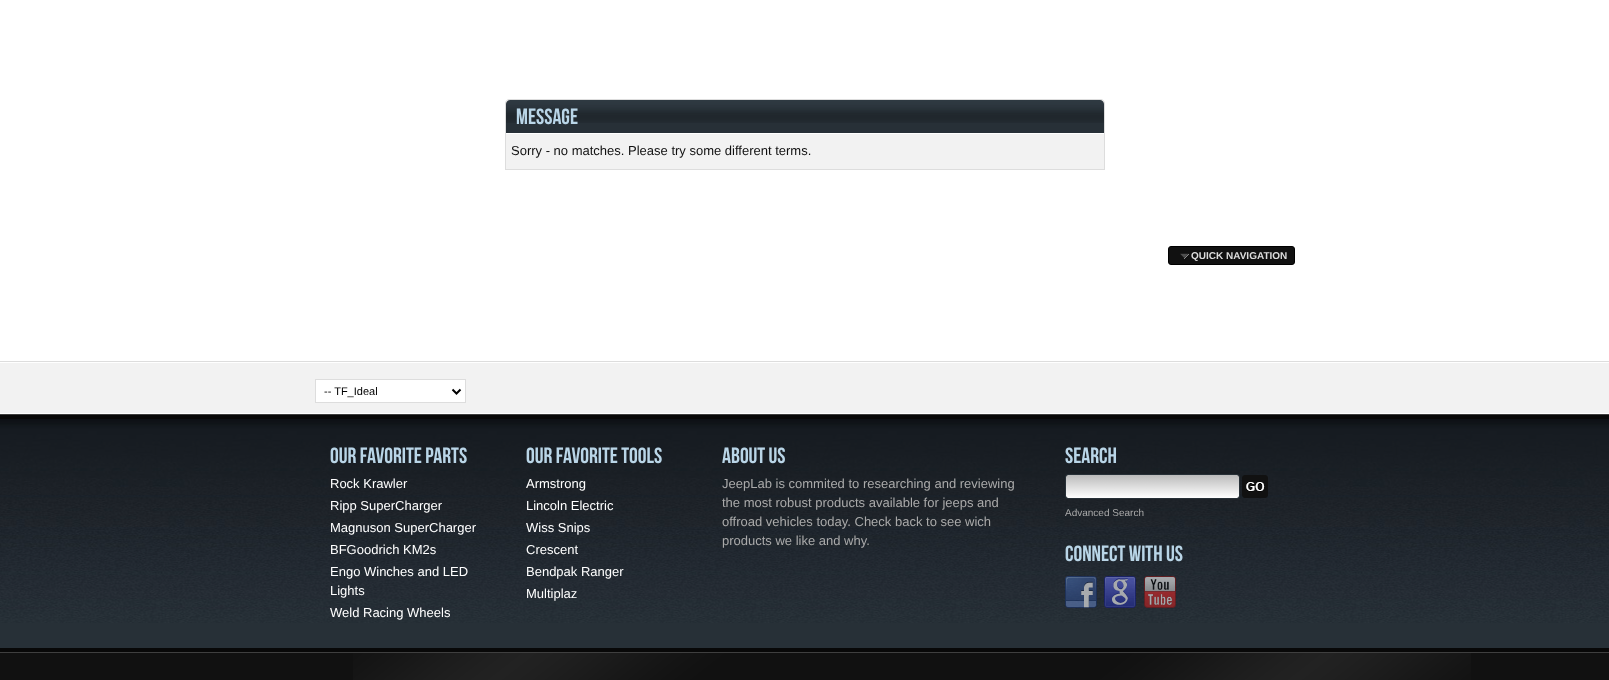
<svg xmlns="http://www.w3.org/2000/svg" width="1609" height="680">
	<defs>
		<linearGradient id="g1" gradientUnits="userSpaceOnUse" x1="1153" y1="475" x2="1153" y2="498"><stop offset="0" stop-color="#BBBBBB" /><stop offset="1" stop-color="#FFFFFF" /></linearGradient>
	</defs>
	<rect width="100%" height="100%" fill="#FFFFFF" />
	<path d="M510 100H1100C1102 100 1104 102 1104 104V133H506V104C506 102 508 100 510 100Z" fill="#273037" />
	<image x="506" y="100" width="598" height="23" href="assets/img1.png" />
	<path d="M510 99H1100C1103 99 1105 101 1105 104V133H505V104C505 101 507 99 510 99ZM510 100H1100C1102 100 1104 102 1104 104V133H506V104C506 102 508 100 510 100Z" fill="#DDDDDD" fill-rule="evenodd" />
	<text x="516" y="124" font-family="Bebas Neue" font-size="22" fill="#B9D5E7">MESSAGE</text>
	<rect x="506" y="134" width="598" height="35" fill="#F2F2F2" />
	<rect x="1104" y="133" width="1" height="37" fill="#DDDDDD" />
	<rect x="505" y="169" width="600" height="1" fill="#DDDDDD" />
	<rect x="505" y="133" width="1" height="37" fill="#DDDDDD" />
	<text x="511" y="155" font-family="Liberation Sans" font-size="13" fill="#111111">Sorry - no matches. Please try some different terms.</text>
	<rect x="1168.5" y="246.5" width="126" height="18" rx="2.5" fill="#111111" stroke="#000000" />
	<image x="1180" y="253" width="9" height="6" href="assets/img2.png" />
	<text x="1191" y="259" font-family="Liberation Sans" font-size="10" font-weight="700" fill="#DDDDDD">QUICK NAVIGATION</text>
	<rect x="0" y="363" width="1609" height="50" fill="#F2F2F2" />
	<rect x="0" y="361" width="1609" height="1" fill="#DDDDDD" />
	<rect x="315.5" y="379.5" width="150" height="23" fill="#FFFFFF" stroke="#DDDDDD" />
	<path d="M452.5 389.5L456.5 393.5L460.5 389.5" fill="none" stroke="#000000" stroke-width="2" />
	<text x="324" y="395" font-family="Liberation Sans" font-size="11" fill="#000000">-- TF_Ideal</text>
	<rect x="0" y="623" width="1609" height="25" fill="#273037" />
	<image x="0" y="419" width="1609" height="204" href="assets/img3.png" />
	<rect x="0" y="414" width="1609" height="1" fill="#3F3F3F" />
	<rect x="0" y="415" width="1609" height="4" fill="#080808" />
	<rect x="0" y="648" width="1609" height="4" fill="#080808" />
	<text x="330" y="463" font-family="Bebas Neue" font-size="22" fill="#B9D5E7">OUR FAVORITE PARTS</text>
	<g font-family="Liberation Sans" font-size="13" fill="#FFFFFF">
		<text x="330" y="488">Rock Krawler</text>
		<text x="330" y="510">Ripp SuperCharger</text>
		<text x="330" y="532">Magnuson SuperCharger</text>
		<text x="330" y="554">BFGoodrich KM2s</text>
		<text x="330" y="576">Engo Winches and LED</text>
		<text x="330" y="595">Lights</text>
		<text x="330" y="617">Weld Racing Wheels</text>
	</g>
	<text x="526" y="463" font-family="Bebas Neue" font-size="22" fill="#B9D5E7">OUR FAVORITE TOOLS</text>
	<g font-family="Liberation Sans" font-size="13" fill="#FFFFFF">
		<text x="526" y="488">Armstrong</text>
		<text x="526" y="510">Lincoln Electric</text>
		<text x="526" y="532">Wiss Snips</text>
		<text x="526" y="554">Crescent</text>
		<text x="526" y="576">Bendpak Ranger</text>
		<text x="526" y="598">Multiplaz</text>
	</g>
	<text x="722" y="463" font-family="Bebas Neue" font-size="22" fill="#B9D5E7">ABOUT US</text>
	<g font-family="Liberation Sans" font-size="13" fill="#AAAAAA">
		<text x="722" y="488">JeepLab is commited to researching and reviewing</text>
		<text x="722" y="507">the most robust products available for jeeps and</text>
		<text x="722" y="526">offroad vehicles today. Check back to see wich</text>
		<text x="722" y="545">products we like and why.</text>
	</g>
	<text x="1065" y="463" font-family="Bebas Neue" font-size="22" fill="#B9D5E7">SEARCH</text>
	<rect x="1066" y="475" width="173" height="23" rx="2" fill="url(#g1)" />
	<rect x="1065.5" y="474.5" width="174" height="24" rx="2.5" fill="none" stroke="#273037" />
	<image x="1242" y="475" width="26" height="23" href="assets/img4.png" />
	<text x="1065" y="516" font-family="Liberation Sans" font-size="10" fill="#AAAAAA">Advanced Search</text>
	<text x="1065" y="561" font-family="Bebas Neue" font-size="22" fill="#B9D5E7">CONNECT WITH US</text>
	<image x="1065" y="576" width="32" height="32" href="assets/img5.png" />
	<image x="1104" y="576" width="32" height="32" href="assets/img6.png" />
	<image x="1144" y="576" width="32" height="32" href="assets/img7.png" />
	<rect x="0" y="653" width="1609" height="27" fill="#111111" />
	<image x="353" y="653" width="1118" height="27" href="assets/img8.png" />
	<rect x="0" y="652" width="1609" height="1" fill="#3F3F3F" />
</svg>
